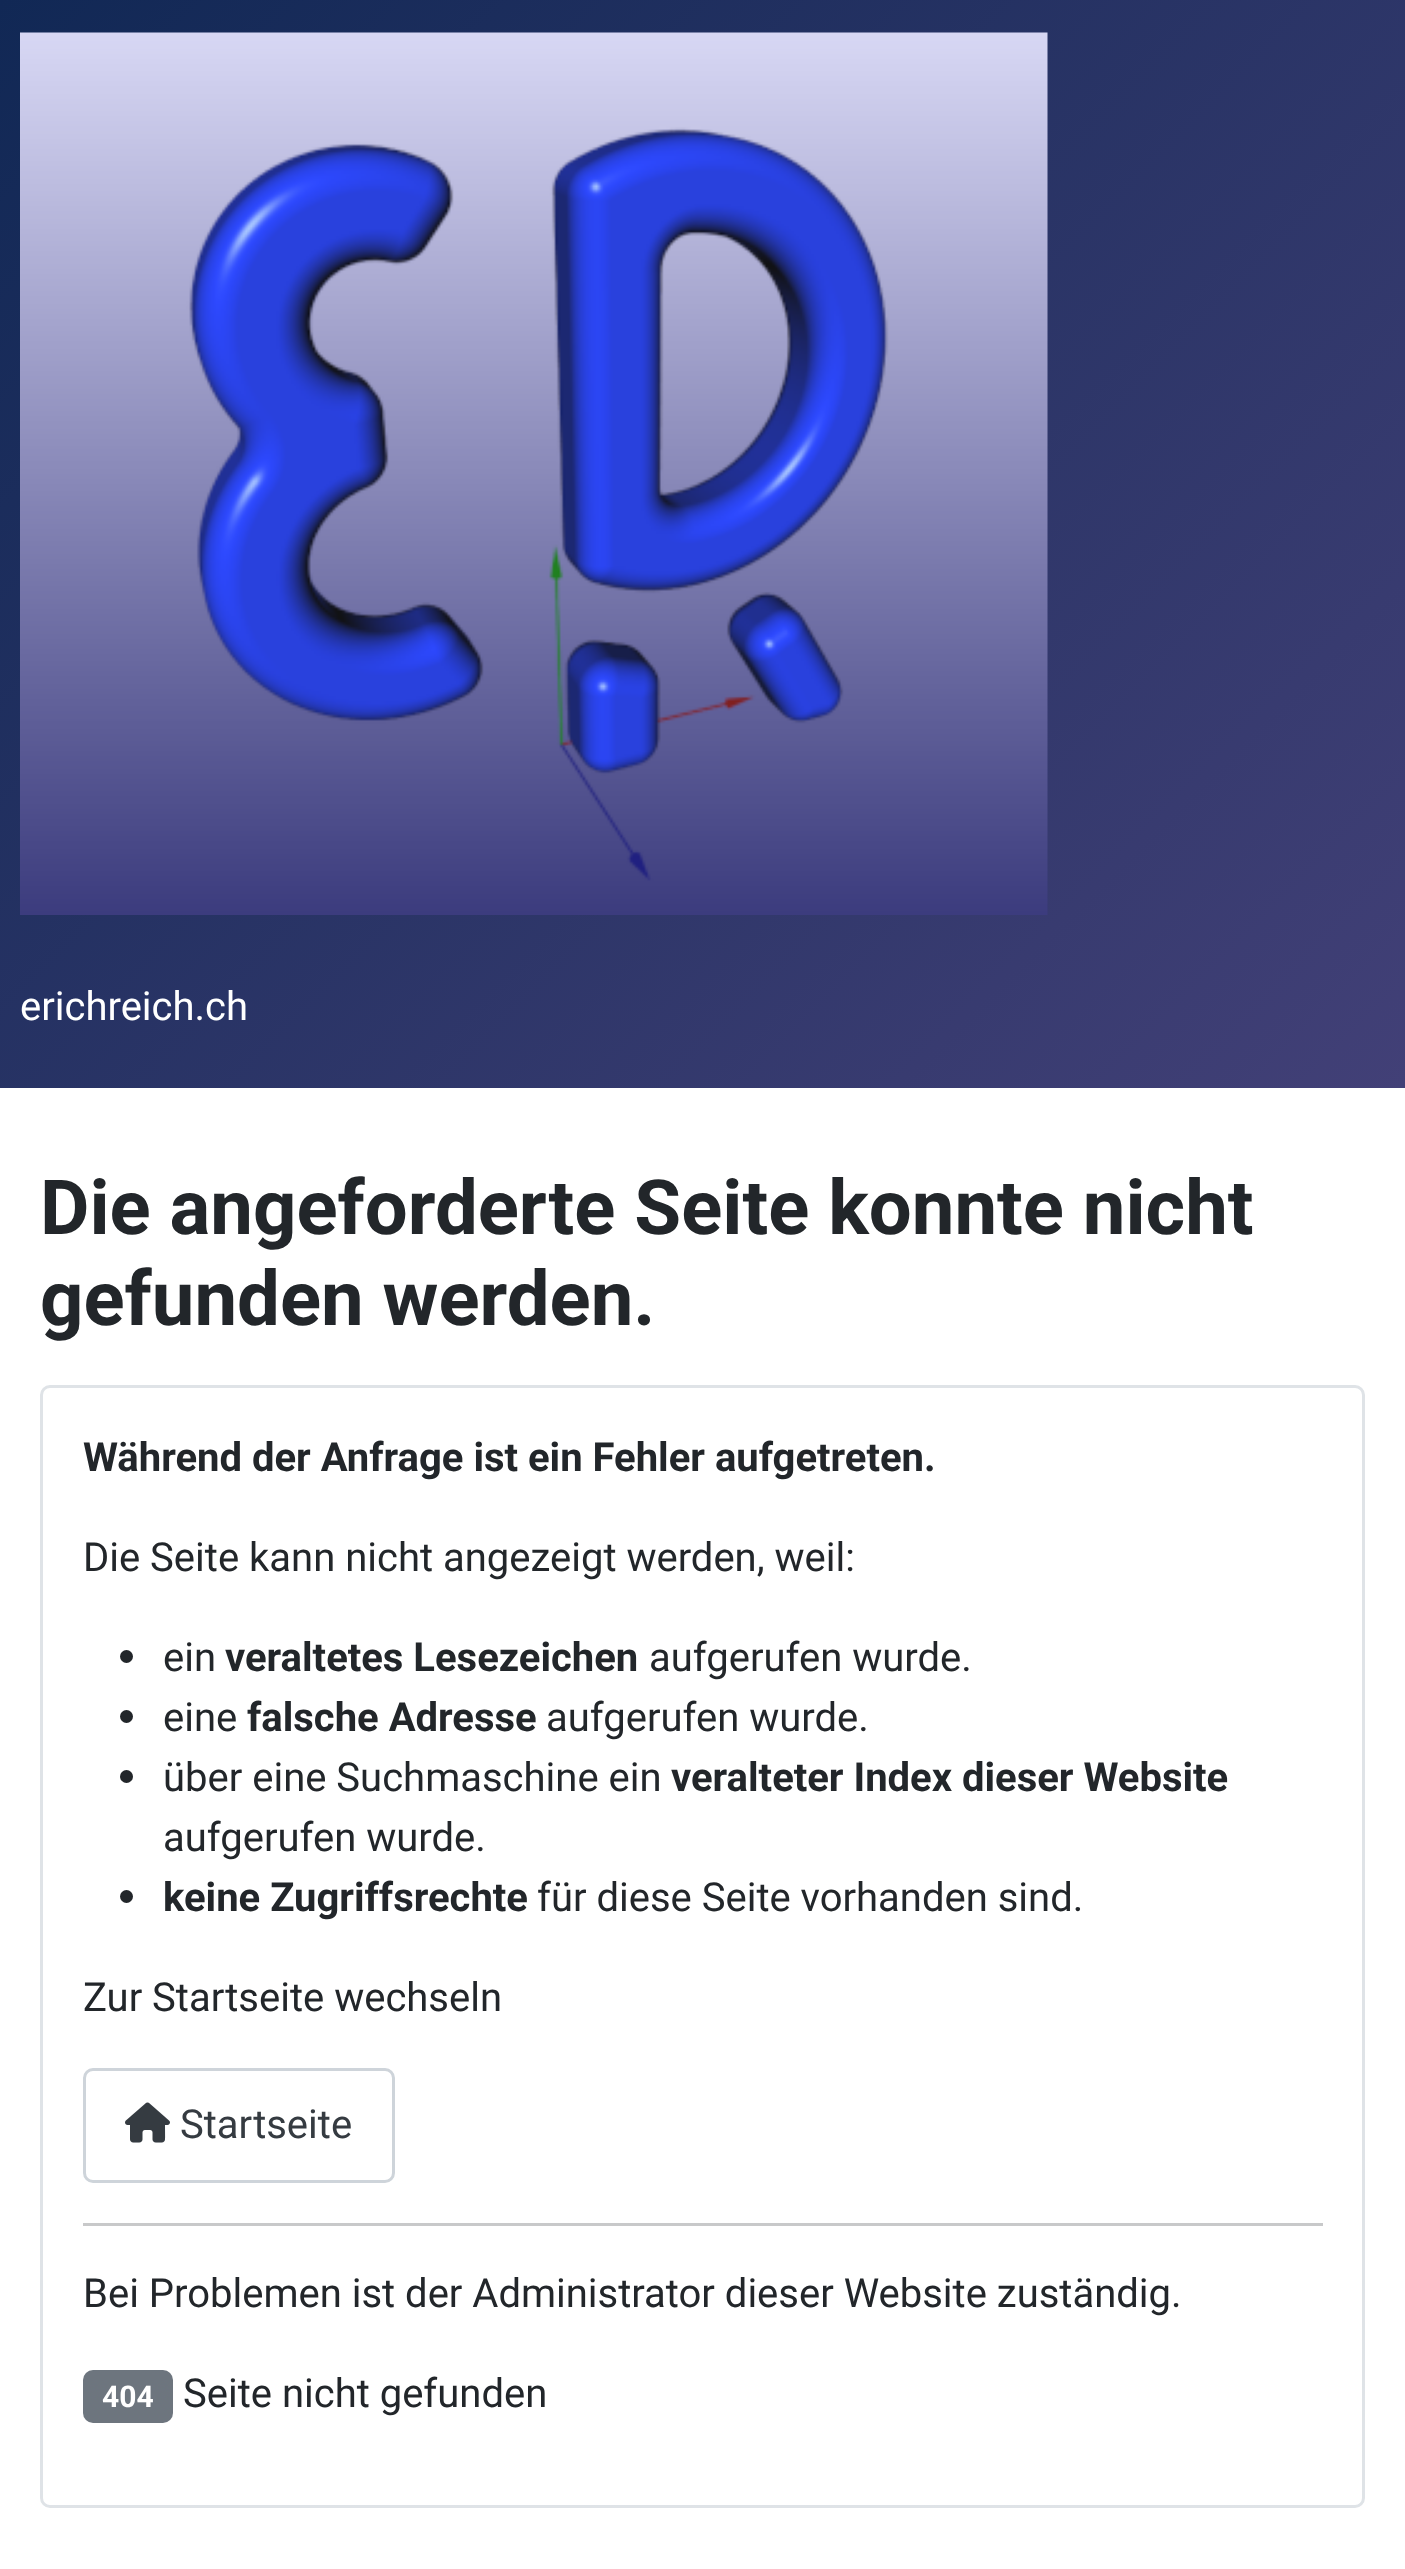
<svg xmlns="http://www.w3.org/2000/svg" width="1405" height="2569">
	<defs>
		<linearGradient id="g1" gradientUnits="userSpaceOnUse" x1="79" y1="-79" x2="1326" y2="1167"><stop offset="0" stop-color="#112855" /><stop offset="1" stop-color="#424077" /></linearGradient>
	</defs>
	<rect width="100%" height="100%" fill="#FFFFFF" />
	<rect x="0" y="0" width="1405" height="1088" fill="url(#g1)" />
	<image x="20" y="32" width="1028" height="883" href="assets/img1.png" />
	<text x="20" y="1020" font-family="Roboto" font-size="40" fill="#FFFFFF">erichreich.ch</text>
	<g font-family="Roboto" font-size="76.1" font-weight="700" fill="#22262A">
		<text x="40" y="1234">Die angeforderte Seite konnte nicht</text>
		<text x="40" y="1325">gefunden werden.</text>
	</g>
	<rect x="41.5" y="1386.5" width="1322" height="1120" rx="8.5" fill="none" stroke="#DFE3E7" stroke-width="3" />
	<text x="83" y="1471" font-family="Roboto" font-size="40" font-weight="700" fill="#22262A">Während der Anfrage ist ein Fehler aufgetreten.</text>
	<text x="83" y="1571" font-family="Roboto" font-size="40" fill="#22262A">Die Seite kann nicht angezeigt werden, weil:</text>
	<circle cx="126.5" cy="1656.5" r="6.5" fill="#22262A" />
	<text x="163" y="1671" font-family="Roboto" font-size="40" fill="#22262A">ein</text>
	<text x="225" y="1671" font-family="Roboto" font-size="40" font-weight="700" fill="#22262A">veraltetes Lesezeichen</text>
	<text x="649" y="1671" font-family="Roboto" font-size="40" fill="#22262A">aufgerufen wurde.</text>
	<circle cx="126.5" cy="1716.5" r="6.5" fill="#22262A" />
	<text x="163" y="1731" font-family="Roboto" font-size="40" fill="#22262A">eine</text>
	<text x="247" y="1731" font-family="Roboto" font-size="40" font-weight="700" fill="#22262A">falsche Adresse</text>
	<text x="546" y="1731" font-family="Roboto" font-size="40" fill="#22262A">aufgerufen wurde.</text>
	<circle cx="126.5" cy="1776.5" r="6.5" fill="#22262A" />
	<text x="163" y="1791" font-family="Roboto" font-size="40" fill="#22262A">über eine Suchmaschine ein</text>
	<text x="671" y="1791" font-family="Roboto" font-size="40" font-weight="700" fill="#22262A">veralteter Index dieser Website</text>
	<text x="163" y="1851" font-family="Roboto" font-size="40" fill="#22262A">aufgerufen wurde.</text>
	<circle cx="126.5" cy="1896.5" r="6.5" fill="#22262A" />
	<text x="163" y="1911" font-family="Roboto" font-size="40" font-weight="700" fill="#22262A">keine Zugriffsrechte</text>
	<g font-family="Roboto" font-size="40" fill="#22262A">
		<text x="537" y="1911">für diese Seite vorhanden sind.</text>
		<text x="83" y="2011">Zur Startseite wechseln</text>
	</g>
	<rect x="84.5" y="2069.5" width="309" height="112" rx="8.5" fill="none" stroke="#CED4DA" stroke-width="3" />
	<image x="125" y="2102" width="45" height="41" href="assets/img2.png" />
	<text x="180" y="2138" font-family="Roboto" font-size="40" fill="#353B41">Startseite</text>
	<rect x="83" y="2223" width="1240" height="3" fill="#C8C9CA" />
	<text x="83" y="2307" font-family="Roboto" font-size="40" fill="#22262A">Bei Problemen ist der Administrator dieser Website zuständig.</text>
	<rect x="83" y="2370" width="90" height="53" rx="10" fill="#6D757E" />
	<text x="102" y="2407" font-family="Roboto" font-size="30" font-weight="700" fill="#FFFFFF">404</text>
	<text x="183" y="2407" font-family="Roboto" font-size="40" fill="#22262A">Seite nicht gefunden</text>
</svg>
